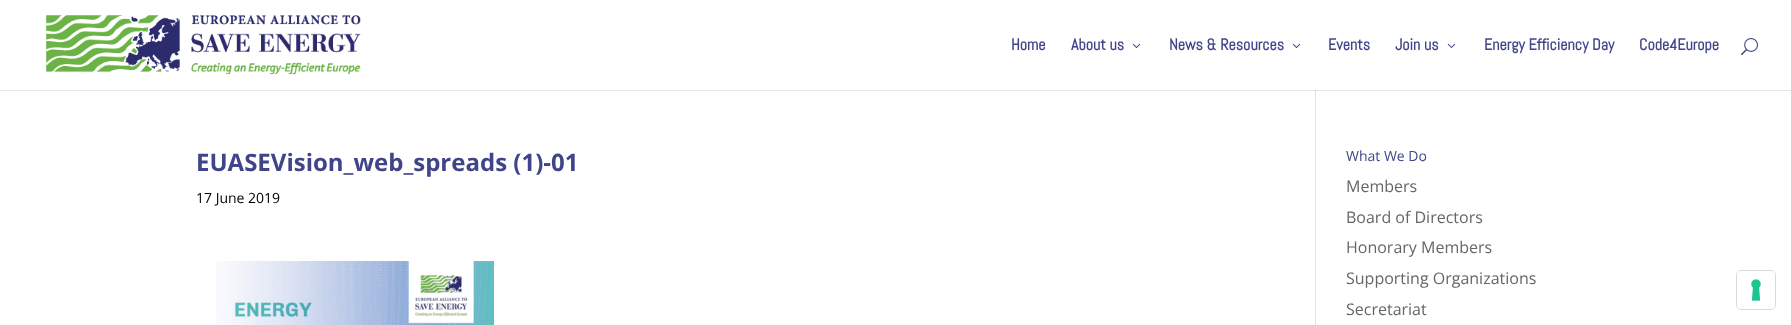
<svg xmlns="http://www.w3.org/2000/svg" width="1791" height="325">
	<rect width="100%" height="100%" fill="#FFFFFF" />
	<rect x="0" y="90" width="1791" height="1" fill="#E6E6E6" />
	<image x="46" y="15" width="315" height="60" href="assets/img1.png" />
	<g font-family="Abel" font-size="16" font-weight="700" fill="#404589">
		<text x="1011" y="50">Home</text>
		<text x="1071" y="50">About us</text>
	</g>
	<image x="1132" y="43" width="9" height="5" href="assets/img2.png" />
	<text x="1169" y="50" font-family="Abel" font-size="16" font-weight="700" fill="#404589">News &amp; Resources</text>
	<image x="1292" y="43" width="9" height="5" href="assets/img2.png" />
	<g font-family="Abel" font-size="16" font-weight="700" fill="#404589">
		<text x="1328" y="50">Events</text>
		<text x="1395" y="50">Join us</text>
	</g>
	<image x="1447" y="43" width="9" height="5" href="assets/img2.png" />
	<g font-family="Abel" font-size="16" font-weight="700" fill="#404589">
		<text x="1484" y="50">Energy Efficiency Day</text>
		<text x="1639" y="50">Code4Europe</text>
	</g>
	<image x="1741" y="38" width="17" height="18" href="assets/img3.png" />
	<rect x="1315" y="90" width="1" height="235" fill="#E2E2E2" />
	<rect x="1315" y="90" width="1" height="1" fill="#CBCBCB" />
	<text x="196" y="171" font-family="Open Sans" font-size="24" font-weight="700" fill="#404589">EUASEVision_web_spreads (1)-01</text>
	<text x="196" y="203" font-family="Open Sans" font-size="14" fill="#000000">17 June 2019</text>
	<image x="216" y="261" width="278" height="64" href="assets/img4.png" />
	<text x="1346" y="161" font-family="Open Sans" font-size="14" fill="#404589">What We Do</text>
	<g font-family="Open Sans" font-size="16" fill="#666666">
		<text x="1346" y="192">Members</text>
		<text x="1346" y="223">Board of Directors</text>
		<text x="1346" y="253">Honorary Members</text>
		<text x="1346" y="284">Supporting Organizations</text>
		<text x="1346" y="315">Secretariat</text>
	</g>
	<rect x="1736.5" y="270.5" width="39" height="39" rx="4.5" fill="none" stroke="#D9D9D9" />
	<rect x="1737" y="271" width="38" height="38" rx="4" fill="#FFFFFF" />
	<image x="1751" y="279" width="10" height="22" href="assets/img5.png" />
</svg>
